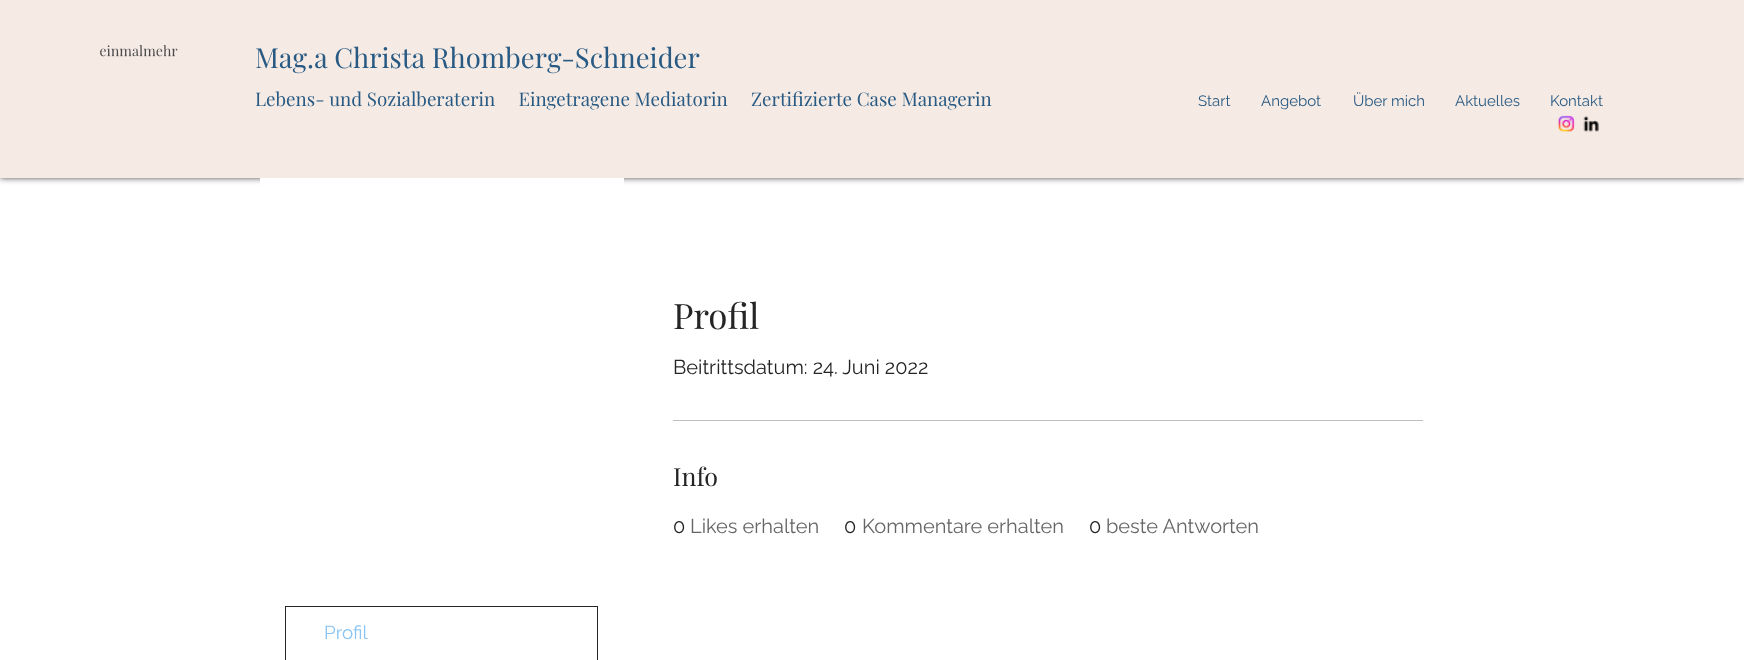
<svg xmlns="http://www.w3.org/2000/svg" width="1744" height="660">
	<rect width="100%" height="100%" fill="#FFFFFF" />
	<rect x="0" y="0" width="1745" height="178" fill="#000000" fill-opacity="0.7" filter="blur(3px)" />
	<rect x="0" y="0" width="1744" height="178" fill="#F6EBE4" />
	<image x="100" y="45" width="78" height="12" href="assets/img1.png" />
	<text x="255" y="68" font-family="Playfair Display" font-size="27.5" fill="#285A84">Mag.a Christa Rhomberg-Schneider</text>
	<text x="255" y="106" font-family="Playfair Display" font-size="18.75" fill="#285A84" xml:space="preserve">Lebens- und Sozialberaterin     Eingetragene Mediatorin     Zertifizierte Case Managerin</text>
	<g font-family="Raleway" font-size="15" fill="#285A84">
		<text x="1198" y="106">Start</text>
		<text x="1261" y="106">Angebot</text>
		<text x="1353" y="106">Über mich</text>
		<text x="1455" y="106">Aktuelles</text>
		<text x="1550" y="106">Kontakt</text>
	</g>
	<image x="1557" y="115" width="18" height="18" href="assets/img2.png" />
	<image x="1583" y="116" width="16" height="16" href="assets/img3.png" />
	<text x="673" y="329" font-family="Playfair Display" font-size="35" fill="#252525">Profil</text>
	<text x="673" y="374" font-family="Raleway" font-size="20" fill="#252525">Beitrittsdatum: 24. Juni 2022</text>
	<rect x="673" y="420" width="750" height="1" fill="#BEBEBE" />
	<text x="673" y="486" font-family="Playfair Display" font-size="25" fill="#252525">Info</text>
	<text x="673" y="533" font-family="Raleway" font-size="20" fill="#252525">0</text>
	<text x="690" y="533" font-family="Raleway" font-size="20" fill="#666666">Likes erhalten</text>
	<text x="844" y="533" font-family="Raleway" font-size="20" fill="#252525">0</text>
	<text x="862" y="533" font-family="Raleway" font-size="20" fill="#666666">Kommentare erhalten</text>
	<text x="1089" y="533" font-family="Raleway" font-size="20" fill="#252525">0</text>
	<text x="1106" y="533" font-family="Raleway" font-size="20" fill="#666666">beste Antworten</text>
	<rect x="260" y="178" width="364" height="7" fill="#FFFFFF" />
	<rect x="285.5" y="606.5" width="312" height="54" fill="none" stroke="#252525" />
	<text x="324" y="639" font-family="Raleway" font-size="18.75" fill="#89C4F2">Profil</text>
</svg>
